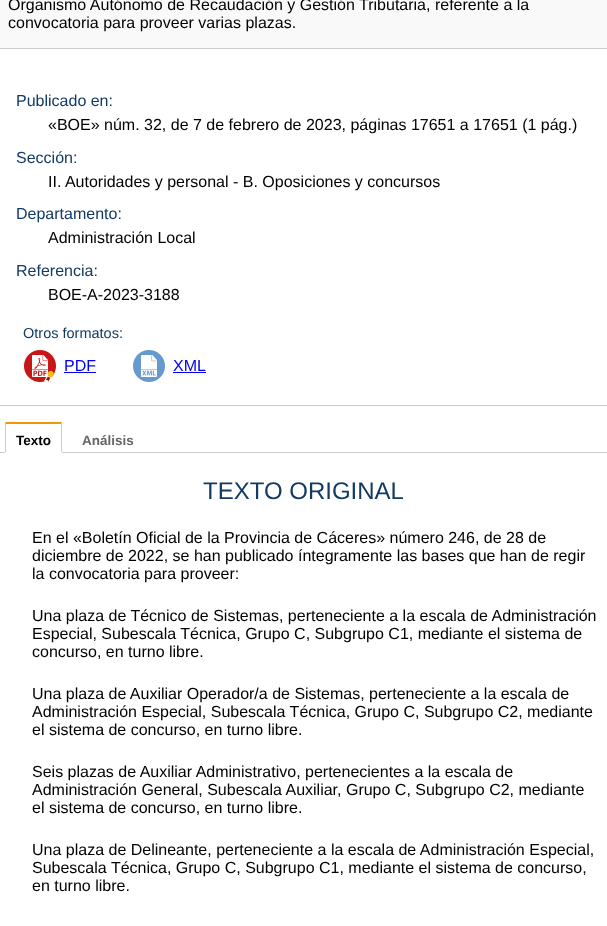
<svg xmlns="http://www.w3.org/2000/svg" width="607" height="926">
	<rect width="100%" height="100%" fill="#FFFFFF" />
	<rect x="0" y="405" width="607" height="1" fill="#CCCCCC" />
	<rect x="0" y="0" width="607" height="48" fill="#F9F9F9" />
	<rect x="0" y="48" width="607" height="1" fill="#CCCCCC" />
	<g font-family="Liberation Sans" font-size="16" fill="#000000">
		<text x="8" y="10">Organismo Autónomo de Recaudación y Gestión Tributaria, referente a la</text>
		<text x="8" y="28">convocatoria para proveer varias plazas.</text>
	</g>
	<text x="16" y="106" font-family="Liberation Sans" font-size="16" fill="#123A63">Publicado en:</text>
	<text x="48" y="130" font-family="Liberation Sans" font-size="16" fill="#000000">«BOE» núm. 32, de 7 de febrero de 2023, páginas 17651 a 17651 (1 pág.)</text>
	<text x="16" y="163" font-family="Liberation Sans" font-size="16" fill="#123A63">Sección:</text>
	<text x="48" y="187" font-family="Liberation Sans" font-size="16" fill="#000000">II. Autoridades y personal - B. Oposiciones y concursos</text>
	<text x="16" y="219" font-family="Liberation Sans" font-size="16" fill="#123A63">Departamento:</text>
	<text x="48" y="243" font-family="Liberation Sans" font-size="16" fill="#000000">Administración Local</text>
	<text x="16" y="276" font-family="Liberation Sans" font-size="16" fill="#123A63">Referencia:</text>
	<text x="48" y="300" font-family="Liberation Sans" font-size="16" fill="#000000">BOE-A-2023-3188</text>
	<text x="23" y="338" font-family="Liberation Sans" font-size="14.5" fill="#123A63">Otros formatos:</text>
	<image x="24" y="350" width="32" height="32" href="assets/img1.png" />
	<text x="64" y="371" font-family="Liberation Sans" font-size="16" fill="#0000EE">PDF</text>
	<rect x="64" y="372" width="32" height="1" fill="#0000EE" />
	<image x="133" y="350" width="32" height="32" href="assets/img2.png" />
	<text x="173" y="371" font-family="Liberation Sans" font-size="16" fill="#0000EE">XML</text>
	<rect x="173" y="372" width="33" height="1" fill="#0000EE" />
	<rect x="0" y="452" width="607" height="1" fill="#CCCCCC" />
	<rect x="5" y="452" width="57" height="1" fill="#FFFFFF" />
	<path d="M5 422H62L61 424H6Z" fill="#F29708" />
	<path d="M62 422V452H61V424ZM5 452V422L6 424V452Z" fill="#CCCCCC" />
	<text x="16" y="445" font-family="Liberation Sans" font-size="13.5" font-weight="700" fill="#000000">Texto</text>
	<text x="82" y="445" font-family="Liberation Sans" font-size="13.5" font-weight="700" fill="#666666">Análisis</text>
	<text x="203" y="499" font-family="Liberation Sans" font-size="24" fill="#123A63">TEXTO ORIGINAL</text>
	<g font-family="Liberation Sans" font-size="16" fill="#000000">
		<text x="32" y="543">En el «Boletín Oficial de la Provincia de Cáceres» número 246, de 28 de</text>
		<text x="32" y="561">diciembre de 2022, se han publicado íntegramente las bases que han de regir</text>
		<text x="32" y="579">la convocatoria para proveer:</text>
		<text x="32" y="621">Una plaza de Técnico de Sistemas, perteneciente a la escala de Administración</text>
		<text x="32" y="639">Especial, Subescala Técnica, Grupo C, Subgrupo C1, mediante el sistema de</text>
		<text x="32" y="657">concurso, en turno libre.</text>
		<text x="32" y="699">Una plaza de Auxiliar Operador/a de Sistemas, perteneciente a la escala de</text>
		<text x="32" y="717">Administración Especial, Subescala Técnica, Grupo C, Subgrupo C2, mediante</text>
		<text x="32" y="735">el sistema de concurso, en turno libre.</text>
		<text x="32" y="777">Seis plazas de Auxiliar Administrativo, pertenecientes a la escala de</text>
		<text x="32" y="795">Administración General, Subescala Auxiliar, Grupo C, Subgrupo C2, mediante</text>
		<text x="32" y="813">el sistema de concurso, en turno libre.</text>
		<text x="32" y="855">Una plaza de Delineante, perteneciente a la escala de Administración Especial,</text>
		<text x="32" y="873">Subescala Técnica, Grupo C, Subgrupo C1, mediante el sistema de concurso,</text>
		<text x="32" y="891">en turno libre.</text>
	</g>
</svg>
